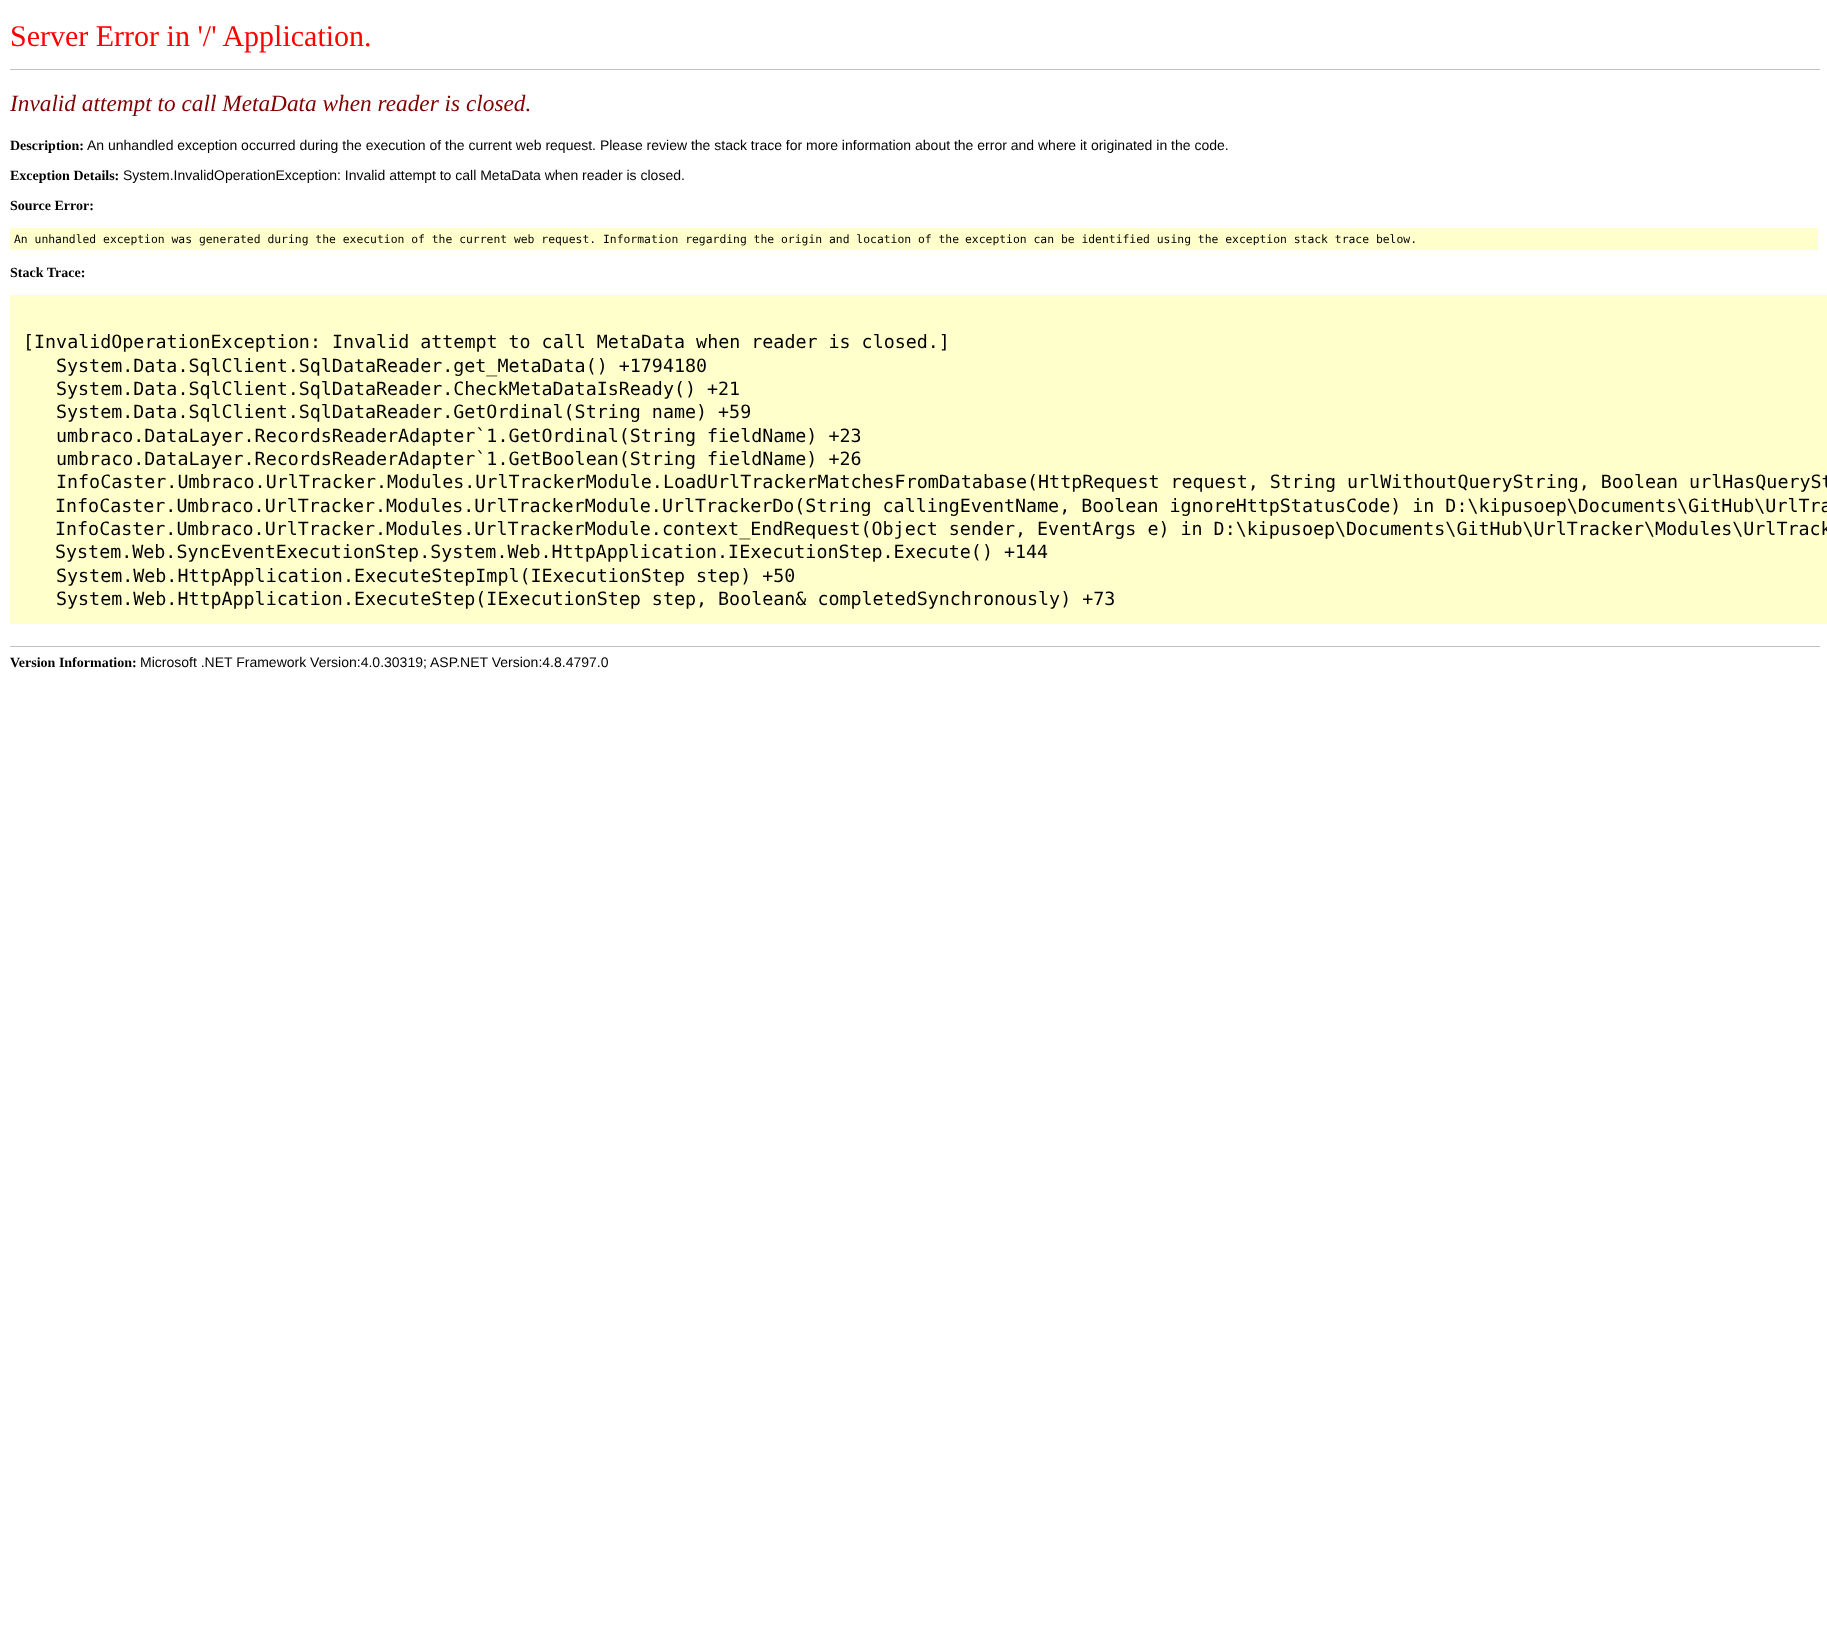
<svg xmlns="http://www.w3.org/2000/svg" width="1827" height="1640">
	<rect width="100%" height="100%" fill="#FFFFFF" />
	<text x="10" y="46" font-family="Liberation Serif" font-size="30" fill="#FF0000">Server Error in '/' Application.</text>
	<rect x="10" y="69" width="1810" height="1" fill="#C0C0C0" />
	<text x="10" y="111" font-family="Liberation Serif" font-size="23.3" font-style="italic" fill="#800000">Invalid attempt to call MetaData when reader is closed.</text>
	<text x="10" y="150" font-family="Liberation Serif" font-size="14" font-weight="700" fill="#000000">Description:</text>
	<text x="87" y="150" font-family="Liberation Sans" font-size="14" fill="#000000">An unhandled exception occurred during the execution of the current web request. Please review the stack trace for more information about the error and where it originated in the code.</text>
	<text x="10" y="180" font-family="Liberation Serif" font-size="14" font-weight="700" fill="#000000">Exception Details:</text>
	<text x="123" y="180" font-family="Liberation Sans" font-size="14" fill="#000000">System.InvalidOperationException: Invalid attempt to call MetaData when reader is closed.</text>
	<text x="10" y="210" font-family="Liberation Serif" font-size="14" font-weight="700" fill="#000000">Source Error:</text>
	<rect x="10" y="228" width="1808" height="22" fill="#FFFFCC" />
	<text x="14" y="243" font-family="DejaVu Sans Mono" font-size="11.38" fill="#000000">An unhandled exception was generated during the execution of the current web request. Information regarding the origin and location of the</text>
	<text x="965" y="243" font-family="DejaVu Sans Mono" font-size="11.38" fill="#000000">exception can be identified using the exception stack trace below.</text>
	<text x="10" y="277" font-family="Liberation Serif" font-size="14" font-weight="700" fill="#000000">Stack Trace:</text>
	<rect x="10" y="295" width="1817" height="329" fill="#FFFFCC" />
	<g font-family="DejaVu Sans Mono" font-size="18.33" fill="#000000">
		<text x="23" y="348">[InvalidOperationException: Invalid attempt to call MetaData when reader is closed.]</text>
		<text x="56" y="372">System.Data.SqlClient.SqlDataReader.get_MetaData() +1794180</text>
		<text x="56" y="395">System.Data.SqlClient.SqlDataReader.CheckMetaDataIsReady() +21</text>
		<text x="56" y="418">System.Data.SqlClient.SqlDataReader.GetOrdinal(String name) +59</text>
		<text x="56" y="442">umbraco.DataLayer.RecordsReaderAdapter`1.GetOrdinal(String fieldName) +23</text>
		<text x="56" y="465">umbraco.DataLayer.RecordsReaderAdapter`1.GetBoolean(String fieldName) +26</text>
		<text x="56" y="488">InfoCaster.Umbraco.UrlTracker.Modules.UrlTrackerModule.LoadUrlTrackerMatchesFromDatabase(HttpRequest request, String urlWithoutQueryString, Boolean urlHasQuerySt</text>
		<text x="55" y="512">InfoCaster.Umbraco.UrlTracker.Modules.UrlTrackerModule.UrlTrackerDo(String callingEventName, Boolean ignoreHttpStatusCode) in D:\kipusoep\Documents\GitHub\UrlTra</text>
		<text x="55" y="535">InfoCaster.Umbraco.UrlTracker.Modules.UrlTrackerModule.context_EndRequest(Object sender, EventArgs e) in D:\kipusoep\Documents\GitHub\UrlTracker\Modules\UrlTrack</text>
		<text x="55" y="558">System.Web.SyncEventExecutionStep.System.Web.HttpApplication.IExecutionStep.Execute() +144</text>
		<text x="56" y="582">System.Web.HttpApplication.ExecuteStepImpl(IExecutionStep step) +50</text>
		<text x="56" y="605">System.Web.HttpApplication.ExecuteStep(IExecutionStep step, Boolean&amp; completedSynchronously) +73</text>
	</g>
	<rect x="10" y="646" width="1810" height="1" fill="#C0C0C0" />
	<text x="10" y="667" font-family="Liberation Serif" font-size="14" font-weight="700" fill="#000000">Version Information:</text>
	<text x="140" y="667" font-family="Liberation Sans" font-size="14" fill="#000000">Microsoft .NET Framework Version:4.0.30319; ASP.NET Version:4.8.4797.0</text>
</svg>
